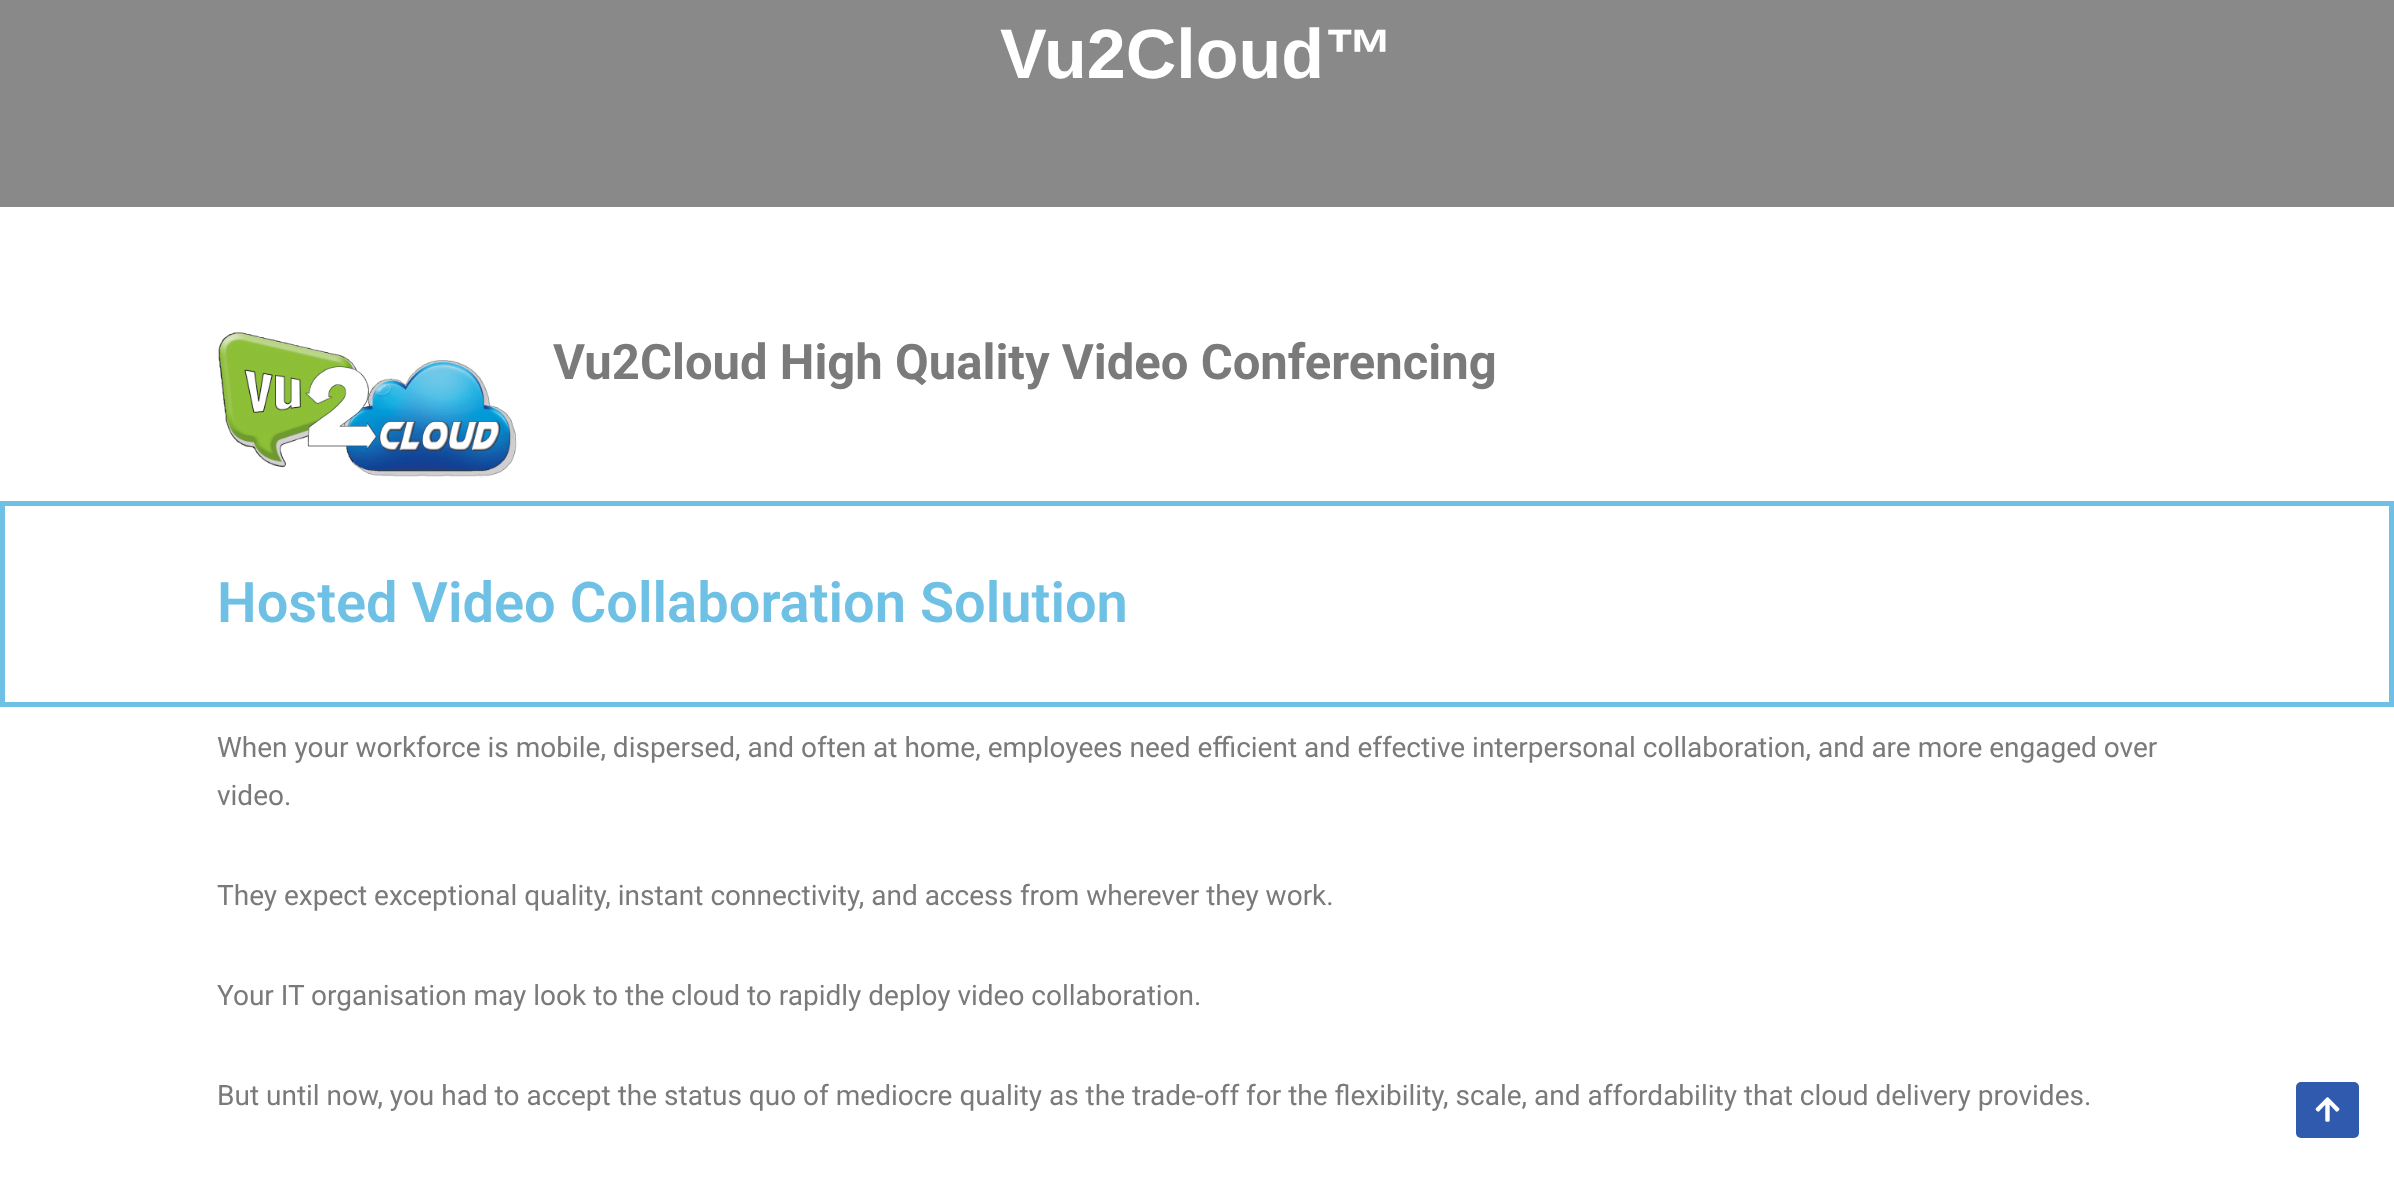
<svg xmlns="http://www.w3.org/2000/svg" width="2394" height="1189">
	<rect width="100%" height="100%" fill="#FFFFFF" />
	<rect x="0" y="0" width="2394" height="207" fill="#898989" />
	<text x="1000" y="78" font-family="Liberation Sans" font-size="70" font-weight="700" fill="#FFFFFF">Vu2Cloud™</text>
	<image x="218" y="332" width="299" height="146" href="assets/img1.png" />
	<text x="553" y="379" font-family="Roboto" font-size="49" font-weight="700" fill="#7A7A7A">Vu2Cloud High Quality Video Conferencing</text>
	<rect x="2.5" y="503.5" width="2389" height="201" fill="none" stroke="#6EC1E4" stroke-width="5" />
	<text x="217" y="622" font-family="Roboto" font-size="56" font-weight="600" fill="#6EC1E4">Hosted Video Collaboration Solution</text>
	<g font-family="Roboto" font-size="28" fill="#7A7A7A">
		<text x="217" y="757">When your workforce is mobile, dispersed, and often at home, employees need efficient and effective interpersonal collaboration, and are more engaged over</text>
		<text x="217" y="805">video.</text>
		<text x="217" y="905">They expect exceptional quality, instant connectivity, and access from wherever they work.</text>
		<text x="217" y="1005">Your IT organisation may look to the cloud to rapidly deploy video collaboration.</text>
		<text x="217" y="1105">But until now, you had to accept the status quo of mediocre quality as the trade-off for the flexibility, scale, and affordability that cloud delivery provides.</text>
	</g>
	<rect x="2296" y="1082" width="63" height="56" rx="5" fill="#2F5AAE" />
	<image x="2315" y="1097" width="25" height="25" href="assets/img2.png" />
</svg>
